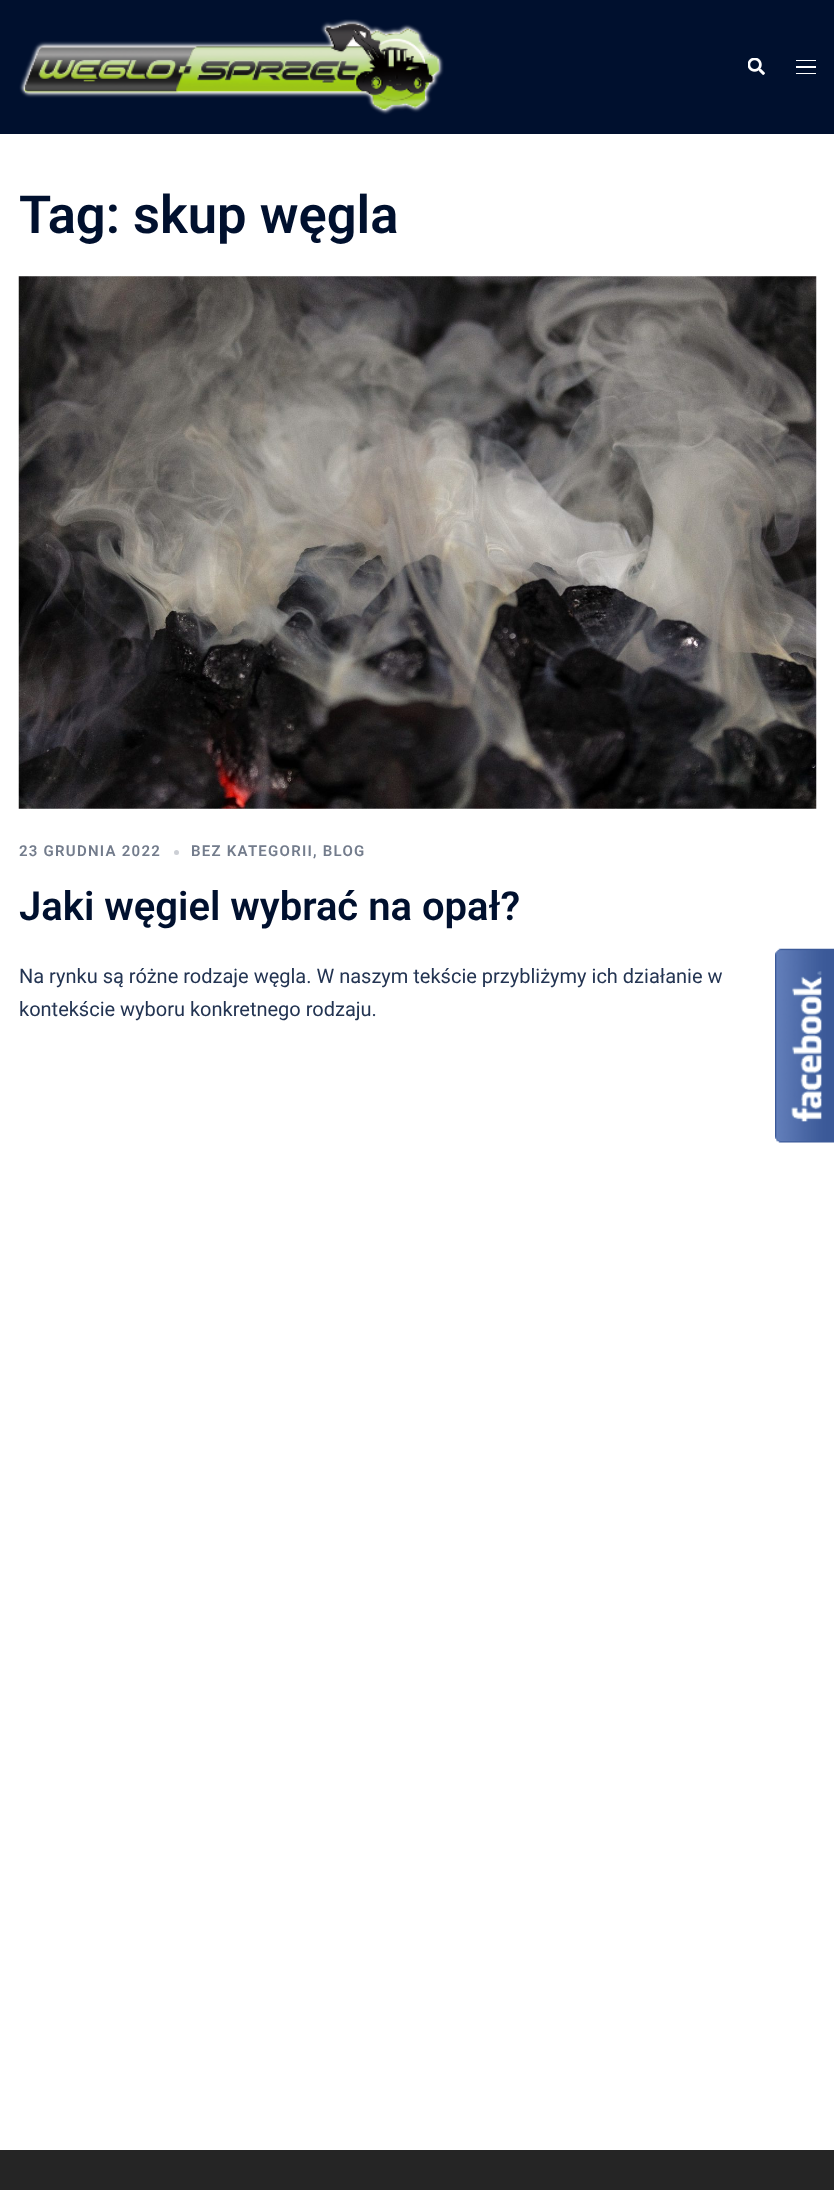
<svg xmlns="http://www.w3.org/2000/svg" width="834" height="2190">
	<rect width="100%" height="100%" fill="#FFFFFF" />
	<rect x="0" y="0" width="834" height="134" fill="#00102E" />
	<image x="19" y="19" width="425" height="96" href="assets/img1.png" />
	<image x="748" y="58" width="17" height="17" href="assets/img2.png" />
	<rect x="796" y="60" width="20" height="1" fill="#FFFFFF" />
	<rect x="796" y="66" width="20" height="2" fill="#FFFFFF" />
	<rect x="796" y="73" width="20" height="1" fill="#FFFFFF" />
	<text x="19" y="233" font-family="Roboto" font-size="52.5" font-weight="600" fill="#00102E">Tag: skup węgla</text>
	<image x="18" y="276" width="799" height="533" href="assets/img3.png" />
	<text x="19" y="856" font-family="Roboto" font-size="15" font-weight="600" letter-spacing="1.25" fill="#737C8C">23 GRUDNIA 2022</text>
	<circle cx="176.5" cy="852.5" r="2.5" fill="#CCCFD5" />
	<text x="191" y="856" font-family="Roboto" font-size="15" font-weight="600" letter-spacing="1.25" fill="#737C8C">BEZ KATEGORII, BLOG</text>
	<text x="19" y="920" font-family="Roboto" font-size="40" font-weight="600" fill="#00102E">Jaki węgiel wybrać na opał?</text>
	<g font-family="Roboto" font-size="20" fill="#233452">
		<text x="19" y="983">Na rynku są różne rodzaje węgla. W naszym tekście przybliżymy ich działanie w</text>
		<text x="19" y="1016">kontekście wyboru konkretnego rodzaju.</text>
	</g>
	<rect x="0" y="2150" width="834" height="40" fill="#252525" />
	<image x="775" y="948" width="59" height="195" href="assets/img4.png" />
</svg>
